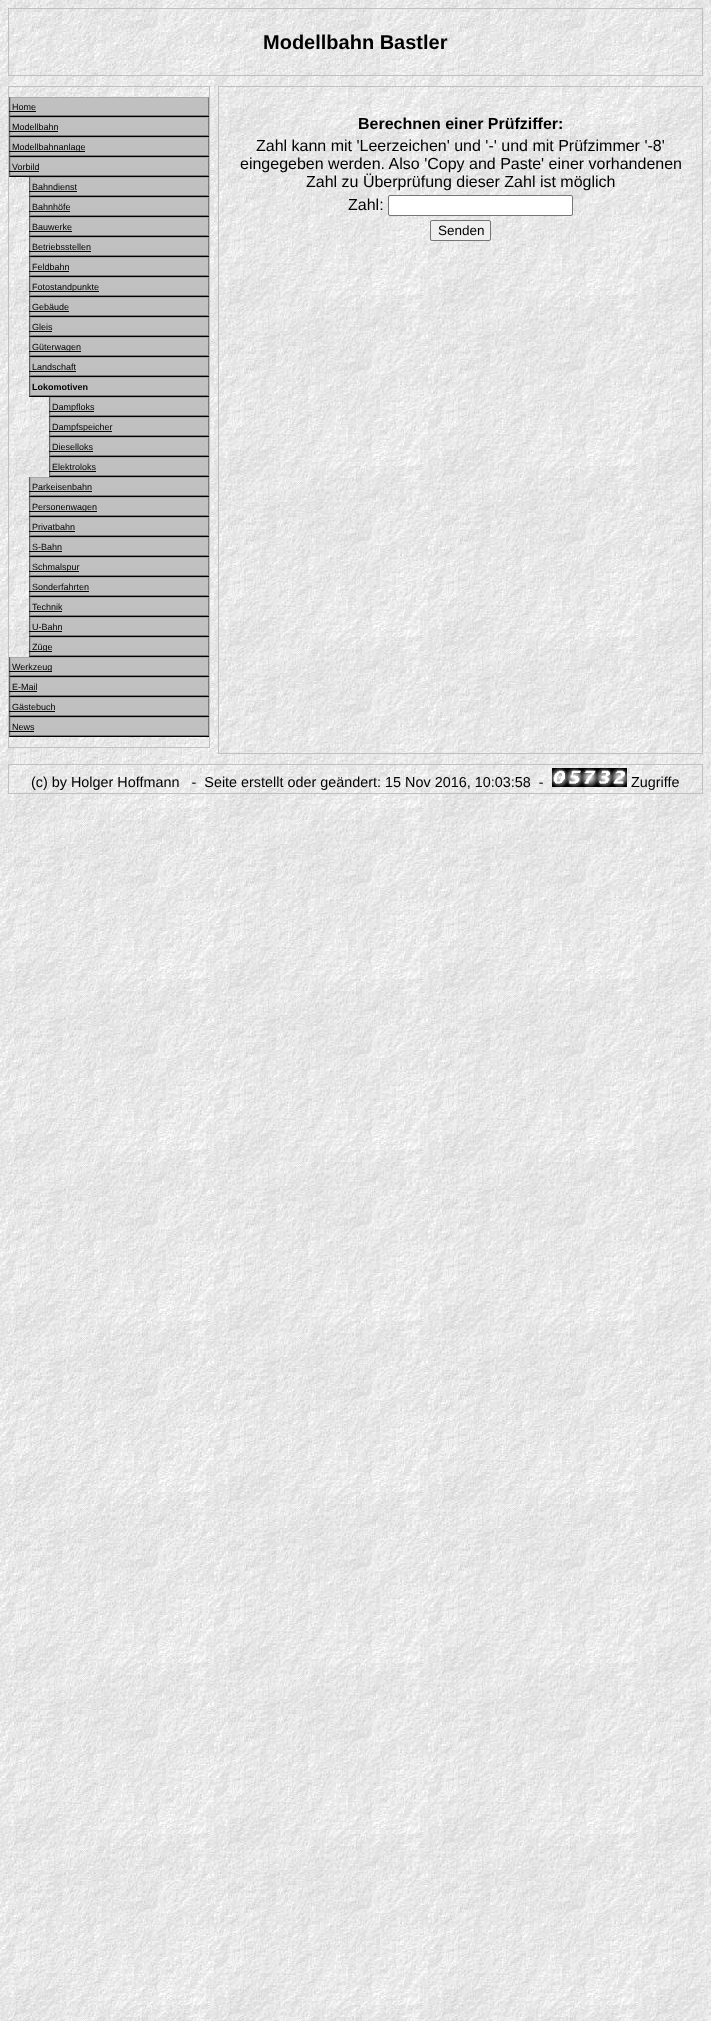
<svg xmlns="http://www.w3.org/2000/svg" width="711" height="2021">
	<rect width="100%" height="100%" fill="#FFFFFF" />
	<image x="0" y="0" width="711" height="2021" href="assets/img1.png" />
	<rect x="8.5" y="8.5" width="694" height="67" fill="none" stroke="#C0C0C0" />
	<text x="263" y="49" font-family="Liberation Sans" font-size="20" font-weight="700" fill="#000000">Modellbahn Bastler</text>
	<rect x="8.5" y="86.5" width="201" height="661" fill="none" stroke="#C0C0C0" />
	<image x="9" y="97" width="200" height="20" href="assets/img2.png" />
	<text x="12" y="110" font-family="Liberation Sans" font-size="9" fill="#000000">Home</text>
	<rect x="9" y="111" width="27" height="1" fill="#000000" />
	<image x="9" y="117" width="200" height="20" href="assets/img2.png" />
	<text x="12" y="130" font-family="Liberation Sans" font-size="9" fill="#000000">Modellbahn</text>
	<rect x="9" y="131" width="49" height="1" fill="#000000" />
	<image x="9" y="137" width="200" height="20" href="assets/img2.png" />
	<rect x="9" y="151" width="76" height="1" fill="#000000" />
	<text x="12" y="150" font-family="Liberation Sans" font-size="9" fill="#000000">Modellbahnanlage</text>
	<image x="9" y="157" width="200" height="20" href="assets/img2.png" />
	<text x="12" y="170" font-family="Liberation Sans" font-size="9" fill="#000000">Vorbild</text>
	<rect x="9" y="171" width="30" height="1" fill="#000000" />
	<image x="29" y="177" width="180" height="20" href="assets/img3.png" />
	<text x="32" y="190" font-family="Liberation Sans" font-size="9" fill="#000000">Bahndienst</text>
	<rect x="29" y="191" width="48" height="1" fill="#000000" />
	<image x="29" y="197" width="180" height="20" href="assets/img3.png" />
	<text x="32" y="210" font-family="Liberation Sans" font-size="9" fill="#000000">Bahnhöfe</text>
	<rect x="29" y="211" width="41" height="1" fill="#000000" />
	<image x="29" y="217" width="180" height="20" href="assets/img3.png" />
	<text x="32" y="230" font-family="Liberation Sans" font-size="9" fill="#000000">Bauwerke</text>
	<rect x="29" y="231" width="43" height="1" fill="#000000" />
	<image x="29" y="237" width="180" height="20" href="assets/img3.png" />
	<text x="32" y="250" font-family="Liberation Sans" font-size="9" fill="#000000">Betriebsstellen</text>
	<rect x="29" y="251" width="62" height="1" fill="#000000" />
	<image x="29" y="257" width="180" height="20" href="assets/img3.png" />
	<text x="32" y="270" font-family="Liberation Sans" font-size="9" fill="#000000">Feldbahn</text>
	<rect x="29" y="271" width="40" height="1" fill="#000000" />
	<image x="29" y="277" width="180" height="20" href="assets/img3.png" />
	<rect x="29" y="291" width="70" height="1" fill="#000000" />
	<text x="32" y="290" font-family="Liberation Sans" font-size="9" fill="#000000">Fotostandpunkte</text>
	<image x="29" y="297" width="180" height="20" href="assets/img3.png" />
	<text x="32" y="310" font-family="Liberation Sans" font-size="9" fill="#000000">Gebäude</text>
	<rect x="29" y="311" width="40" height="1" fill="#000000" />
	<image x="29" y="317" width="180" height="20" href="assets/img3.png" />
	<text x="32" y="330" font-family="Liberation Sans" font-size="9" fill="#000000">Gleis</text>
	<rect x="29" y="331" width="23" height="1" fill="#000000" />
	<image x="29" y="337" width="180" height="20" href="assets/img3.png" />
	<rect x="29" y="351" width="52" height="1" fill="#000000" />
	<text x="32" y="350" font-family="Liberation Sans" font-size="9" fill="#000000">Güterwagen</text>
	<image x="29" y="357" width="180" height="20" href="assets/img3.png" />
	<text x="32" y="370" font-family="Liberation Sans" font-size="9" fill="#000000">Landschaft</text>
	<rect x="29" y="371" width="47" height="1" fill="#000000" />
	<image x="29" y="377" width="180" height="20" href="assets/img3.png" />
	<text x="32" y="390" font-family="Liberation Sans" font-size="9" font-weight="700" fill="#000000">Lokomotiven</text>
	<image x="49" y="397" width="160" height="20" href="assets/img4.png" />
	<rect x="49" y="411" width="45" height="1" fill="#000000" />
	<text x="52" y="410" font-family="Liberation Sans" font-size="9" fill="#000000">Dampfloks</text>
	<image x="49" y="417" width="160" height="20" href="assets/img4.png" />
	<rect x="49" y="431" width="63" height="1" fill="#000000" />
	<text x="52" y="430" font-family="Liberation Sans" font-size="9" fill="#000000">Dampfspeicher</text>
	<image x="49" y="437" width="160" height="20" href="assets/img4.png" />
	<text x="52" y="450" font-family="Liberation Sans" font-size="9" fill="#000000">Dieselloks</text>
	<rect x="49" y="451" width="44" height="1" fill="#000000" />
	<image x="49" y="457" width="160" height="20" href="assets/img4.png" />
	<text x="52" y="470" font-family="Liberation Sans" font-size="9" fill="#000000">Elektroloks</text>
	<rect x="49" y="471" width="47" height="1" fill="#000000" />
	<image x="29" y="477" width="180" height="20" href="assets/img3.png" />
	<text x="32" y="490" font-family="Liberation Sans" font-size="9" fill="#000000">Parkeisenbahn</text>
	<rect x="29" y="491" width="63" height="1" fill="#000000" />
	<image x="29" y="497" width="180" height="20" href="assets/img3.png" />
	<rect x="29" y="511" width="68" height="1" fill="#000000" />
	<text x="32" y="510" font-family="Liberation Sans" font-size="9" fill="#000000">Personenwagen</text>
	<image x="29" y="517" width="180" height="20" href="assets/img3.png" />
	<text x="32" y="530" font-family="Liberation Sans" font-size="9" fill="#000000">Privatbahn</text>
	<rect x="29" y="531" width="46" height="1" fill="#000000" />
	<image x="29" y="537" width="180" height="20" href="assets/img3.png" />
	<text x="32" y="550" font-family="Liberation Sans" font-size="9" fill="#000000">S-Bahn</text>
	<rect x="29" y="551" width="33" height="1" fill="#000000" />
	<image x="29" y="557" width="180" height="20" href="assets/img3.png" />
	<rect x="29" y="571" width="50" height="1" fill="#000000" />
	<text x="32" y="570" font-family="Liberation Sans" font-size="9" fill="#000000">Schmalspur</text>
	<image x="29" y="577" width="180" height="20" href="assets/img3.png" />
	<text x="32" y="590" font-family="Liberation Sans" font-size="9" fill="#000000">Sonderfahrten</text>
	<rect x="29" y="591" width="60" height="1" fill="#000000" />
	<image x="29" y="597" width="180" height="20" href="assets/img3.png" />
	<text x="32" y="610" font-family="Liberation Sans" font-size="9" fill="#000000">Technik</text>
	<rect x="29" y="611" width="33" height="1" fill="#000000" />
	<image x="29" y="617" width="180" height="20" href="assets/img3.png" />
	<text x="32" y="630" font-family="Liberation Sans" font-size="9" fill="#000000">U-Bahn</text>
	<rect x="29" y="631" width="33" height="1" fill="#000000" />
	<image x="29" y="637" width="180" height="20" href="assets/img3.png" />
	<rect x="29" y="651" width="23" height="1" fill="#000000" />
	<text x="32" y="650" font-family="Liberation Sans" font-size="9" fill="#000000">Züge</text>
	<image x="9" y="657" width="200" height="20" href="assets/img2.png" />
	<rect x="9" y="671" width="43" height="1" fill="#000000" />
	<text x="12" y="670" font-family="Liberation Sans" font-size="9" fill="#000000">Werkzeug</text>
	<image x="9" y="677" width="200" height="20" href="assets/img2.png" />
	<text x="12" y="690" font-family="Liberation Sans" font-size="9" fill="#000000">E-Mail</text>
	<rect x="9" y="691" width="28" height="1" fill="#000000" />
	<image x="9" y="697" width="200" height="20" href="assets/img2.png" />
	<text x="12" y="710" font-family="Liberation Sans" font-size="9" fill="#000000">Gästebuch</text>
	<rect x="9" y="711" width="46" height="1" fill="#000000" />
	<image x="9" y="717" width="200" height="20" href="assets/img2.png" />
	<text x="12" y="730" font-family="Liberation Sans" font-size="9" fill="#000000">News</text>
	<rect x="9" y="731" width="25" height="1" fill="#000000" />
	<rect x="218.5" y="86.5" width="484" height="667" fill="none" stroke="#C0C0C0" />
	<text x="358" y="129" font-family="Liberation Sans" font-size="16" font-weight="700" fill="#000000">Berechnen einer Prüfziffer:</text>
	<g font-family="Liberation Sans" font-size="16" fill="#000000">
		<text x="256" y="151">Zahl kann mit 'Leerzeichen' und '-' und mit Prüfzimmer '-8'</text>
		<text x="240" y="169">eingegeben werden. Also 'Copy and Paste' einer vorhandenen</text>
		<text x="306" y="187">Zahl zu Überprüfung dieser Zahl ist möglich</text>
		<text x="348" y="210">Zahl:</text>
	</g>
	<rect x="388.5" y="195.5" width="184" height="20" rx="1.5" fill="#FFFFFF" stroke="#767676" />
	<rect x="430.5" y="220.5" width="60" height="20" rx="1.5" fill="#EFEFEF" stroke="#767676" />
	<text x="438" y="235" font-family="Liberation Sans" font-size="13.5" fill="#000000">Senden</text>
	<rect x="8.5" y="764.5" width="694" height="29" fill="none" stroke="#C0C0C0" />
	<text x="31" y="787" font-family="Liberation Sans" font-size="14.4" fill="#000000" xml:space="preserve">(c) by Holger Hoffmann   -  Seite erstellt oder geändert: 15 Nov 2016, 10:03:58  -</text>
	<image x="552" y="768" width="15" height="19" href="assets/img5.png" />
	<image x="567" y="768" width="15" height="19" href="assets/img6.png" />
	<image x="582" y="768" width="15" height="19" href="assets/img7.png" />
	<image x="597" y="768" width="15" height="19" href="assets/img8.png" />
	<image x="612" y="768" width="15" height="19" href="assets/img9.png" />
	<text x="631" y="787" font-family="Liberation Sans" font-size="14.4" fill="#000000">Zugriffe</text>
</svg>
